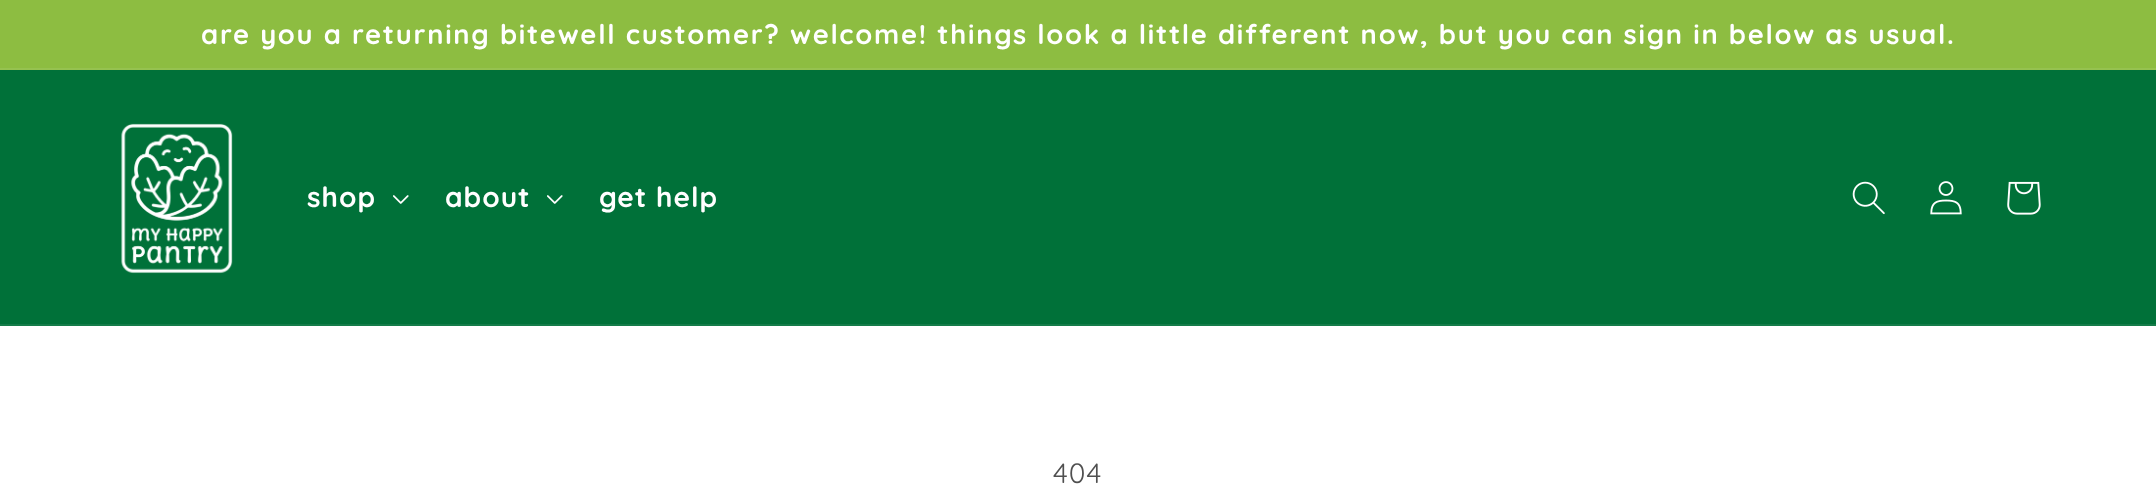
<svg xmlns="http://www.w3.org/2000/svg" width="2156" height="498">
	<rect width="100%" height="100%" fill="#FFFFFF" />
	<rect x="0" y="0" width="2156" height="68" fill="#8DBD41" />
	<rect x="0" y="68" width="2156" height="2" fill="#96C250" />
	<text x="201" y="44" font-family="Quicksand" font-size="27.3" font-weight="700" letter-spacing="1.75" fill="#FFFFFF">are you a returning bitewell customer? welcome! things look a little different now, but you can sign in below as usual.</text>
	<rect x="0" y="70" width="2156" height="254" fill="#007139" />
	<rect x="0" y="324" width="2156" height="2" fill="#147C49" />
	<image x="121" y="123" width="112" height="151" href="assets/img1.png" />
	<text x="307" y="207" font-family="Quicksand" font-size="28" font-weight="700" letter-spacing="1" fill="#FFFFFF">shop</text>
	<image x="393" y="195" width="16" height="9" href="assets/img2.png" />
	<text x="445" y="207" font-family="Quicksand" font-size="28" font-weight="700" letter-spacing="1" fill="#FFFFFF">about</text>
	<image x="547" y="195" width="16" height="9" href="assets/img2.png" />
	<text x="599" y="207" font-family="Quicksand" font-size="28" font-weight="700" letter-spacing="1" fill="#FFFFFF">get help</text>
	<image x="1852" y="181" width="33" height="34" href="assets/img3.png" />
	<image x="1930" y="181" width="32" height="34" href="assets/img4.png" />
	<image x="2007" y="181" width="34" height="34" href="assets/img5.png" />
	<text x="1053" y="483" font-family="Quicksand" font-size="28" letter-spacing="1" fill="#505050">404</text>
</svg>
